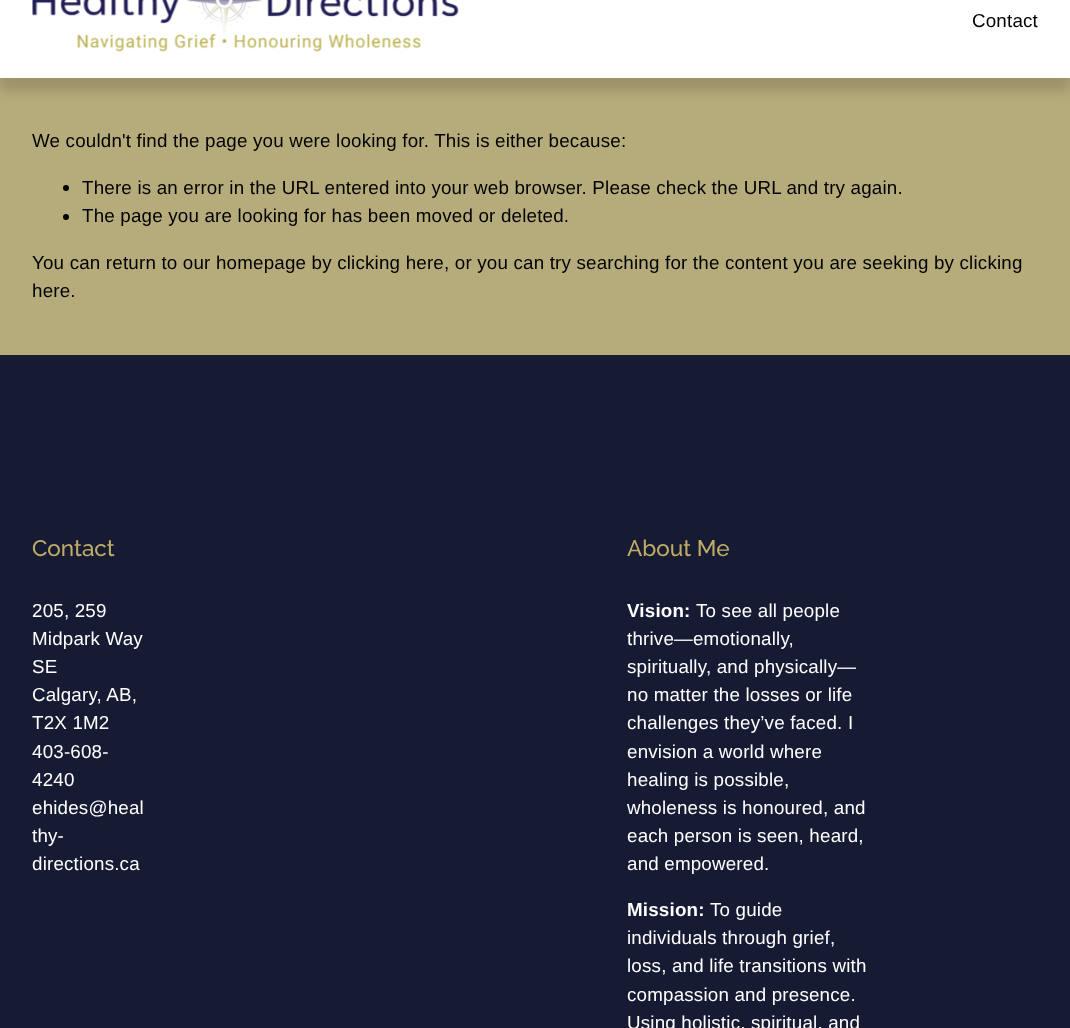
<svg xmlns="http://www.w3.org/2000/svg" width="1070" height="1028">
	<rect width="100%" height="100%" fill="#B6AC7B" />
	<rect x="-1" y="-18" width="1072" height="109" fill="#9B9269" filter="blur(6px)" />
	<rect x="0" y="0" width="1070" height="78" fill="#FFFFFF" />
	<image x="32" y="0" width="427" height="52" href="assets/img1.png" />
	<g font-family="Liberation Sans" font-size="18.78" letter-spacing="0.19" fill="#000000">
		<text x="972" y="27">Contact</text>
		<text x="32" y="147">We couldn't find the page you were looking for. This is either because:</text>
	</g>
	<circle cx="66" cy="188" r="3" fill="#000000" />
	<text x="82" y="194" font-family="Liberation Sans" font-size="18.78" letter-spacing="0.19" fill="#000000">There is an error in the URL entered into your web browser. Please check the URL and try again.</text>
	<circle cx="66" cy="217" r="3" fill="#000000" />
	<g font-family="Liberation Sans" font-size="18.78" letter-spacing="0.19" fill="#000000">
		<text x="82" y="222">The page you are looking for has been moved or deleted.</text>
		<text x="32" y="269">You can return to our homepage by clicking here, or you can try searching for the content you are seeking by clicking</text>
		<text x="32" y="297">here.</text>
	</g>
	<rect x="0" y="355" width="1070" height="673" fill="#161B33" />
	<text x="32" y="556" font-family="Raleway" font-size="22.5" font-weight="500" fill="#BFAD67">Contact</text>
	<g font-family="Liberation Sans" font-size="18.78" letter-spacing="0.19" fill="#FFFFFF">
		<text x="32" y="617">205, 259</text>
		<text x="32" y="645">Midpark Way</text>
		<text x="32" y="673">SE</text>
		<text x="32" y="701">Calgary, AB,</text>
		<text x="32" y="729">T2X 1M2</text>
		<text x="32" y="758">403-608-</text>
		<text x="32" y="786">4240</text>
		<text x="32" y="814">ehides@heal</text>
		<text x="32" y="842">thy-</text>
		<text x="32" y="870">directions.ca</text>
	</g>
	<text x="627" y="556" font-family="Raleway" font-size="22.5" font-weight="500" fill="#BFAD67">About Me</text>
	<text x="627" y="617" font-family="Liberation Sans" font-size="18.78" font-weight="700" letter-spacing="0.19" fill="#FFFFFF">Vision:</text>
	<g font-family="Liberation Sans" font-size="18.78" letter-spacing="0.19" fill="#FFFFFF">
		<text x="696" y="617">To see all people</text>
		<text x="627" y="645">thrive—emotionally,</text>
		<text x="627" y="673">spiritually, and physically—</text>
		<text x="627" y="701">no matter the losses or life</text>
		<text x="627" y="729">challenges they’ve faced. I</text>
		<text x="627" y="758">envision a world where</text>
		<text x="627" y="786">healing is possible,</text>
		<text x="627" y="814">wholeness is honoured, and</text>
		<text x="627" y="842">each person is seen, heard,</text>
		<text x="627" y="870">and empowered.</text>
	</g>
	<text x="627" y="916" font-family="Liberation Sans" font-size="18.78" font-weight="700" letter-spacing="0.19" fill="#FFFFFF">Mission:</text>
	<g font-family="Liberation Sans" font-size="18.78" letter-spacing="0.19" fill="#FFFFFF">
		<text x="710" y="916">To guide</text>
		<text x="627" y="944">individuals through grief,</text>
		<text x="627" y="972">loss, and life transitions with</text>
		<text x="627" y="1001">compassion and presence.</text>
		<text x="627" y="1029">Using holistic, spiritual, and</text>
	</g>
</svg>
